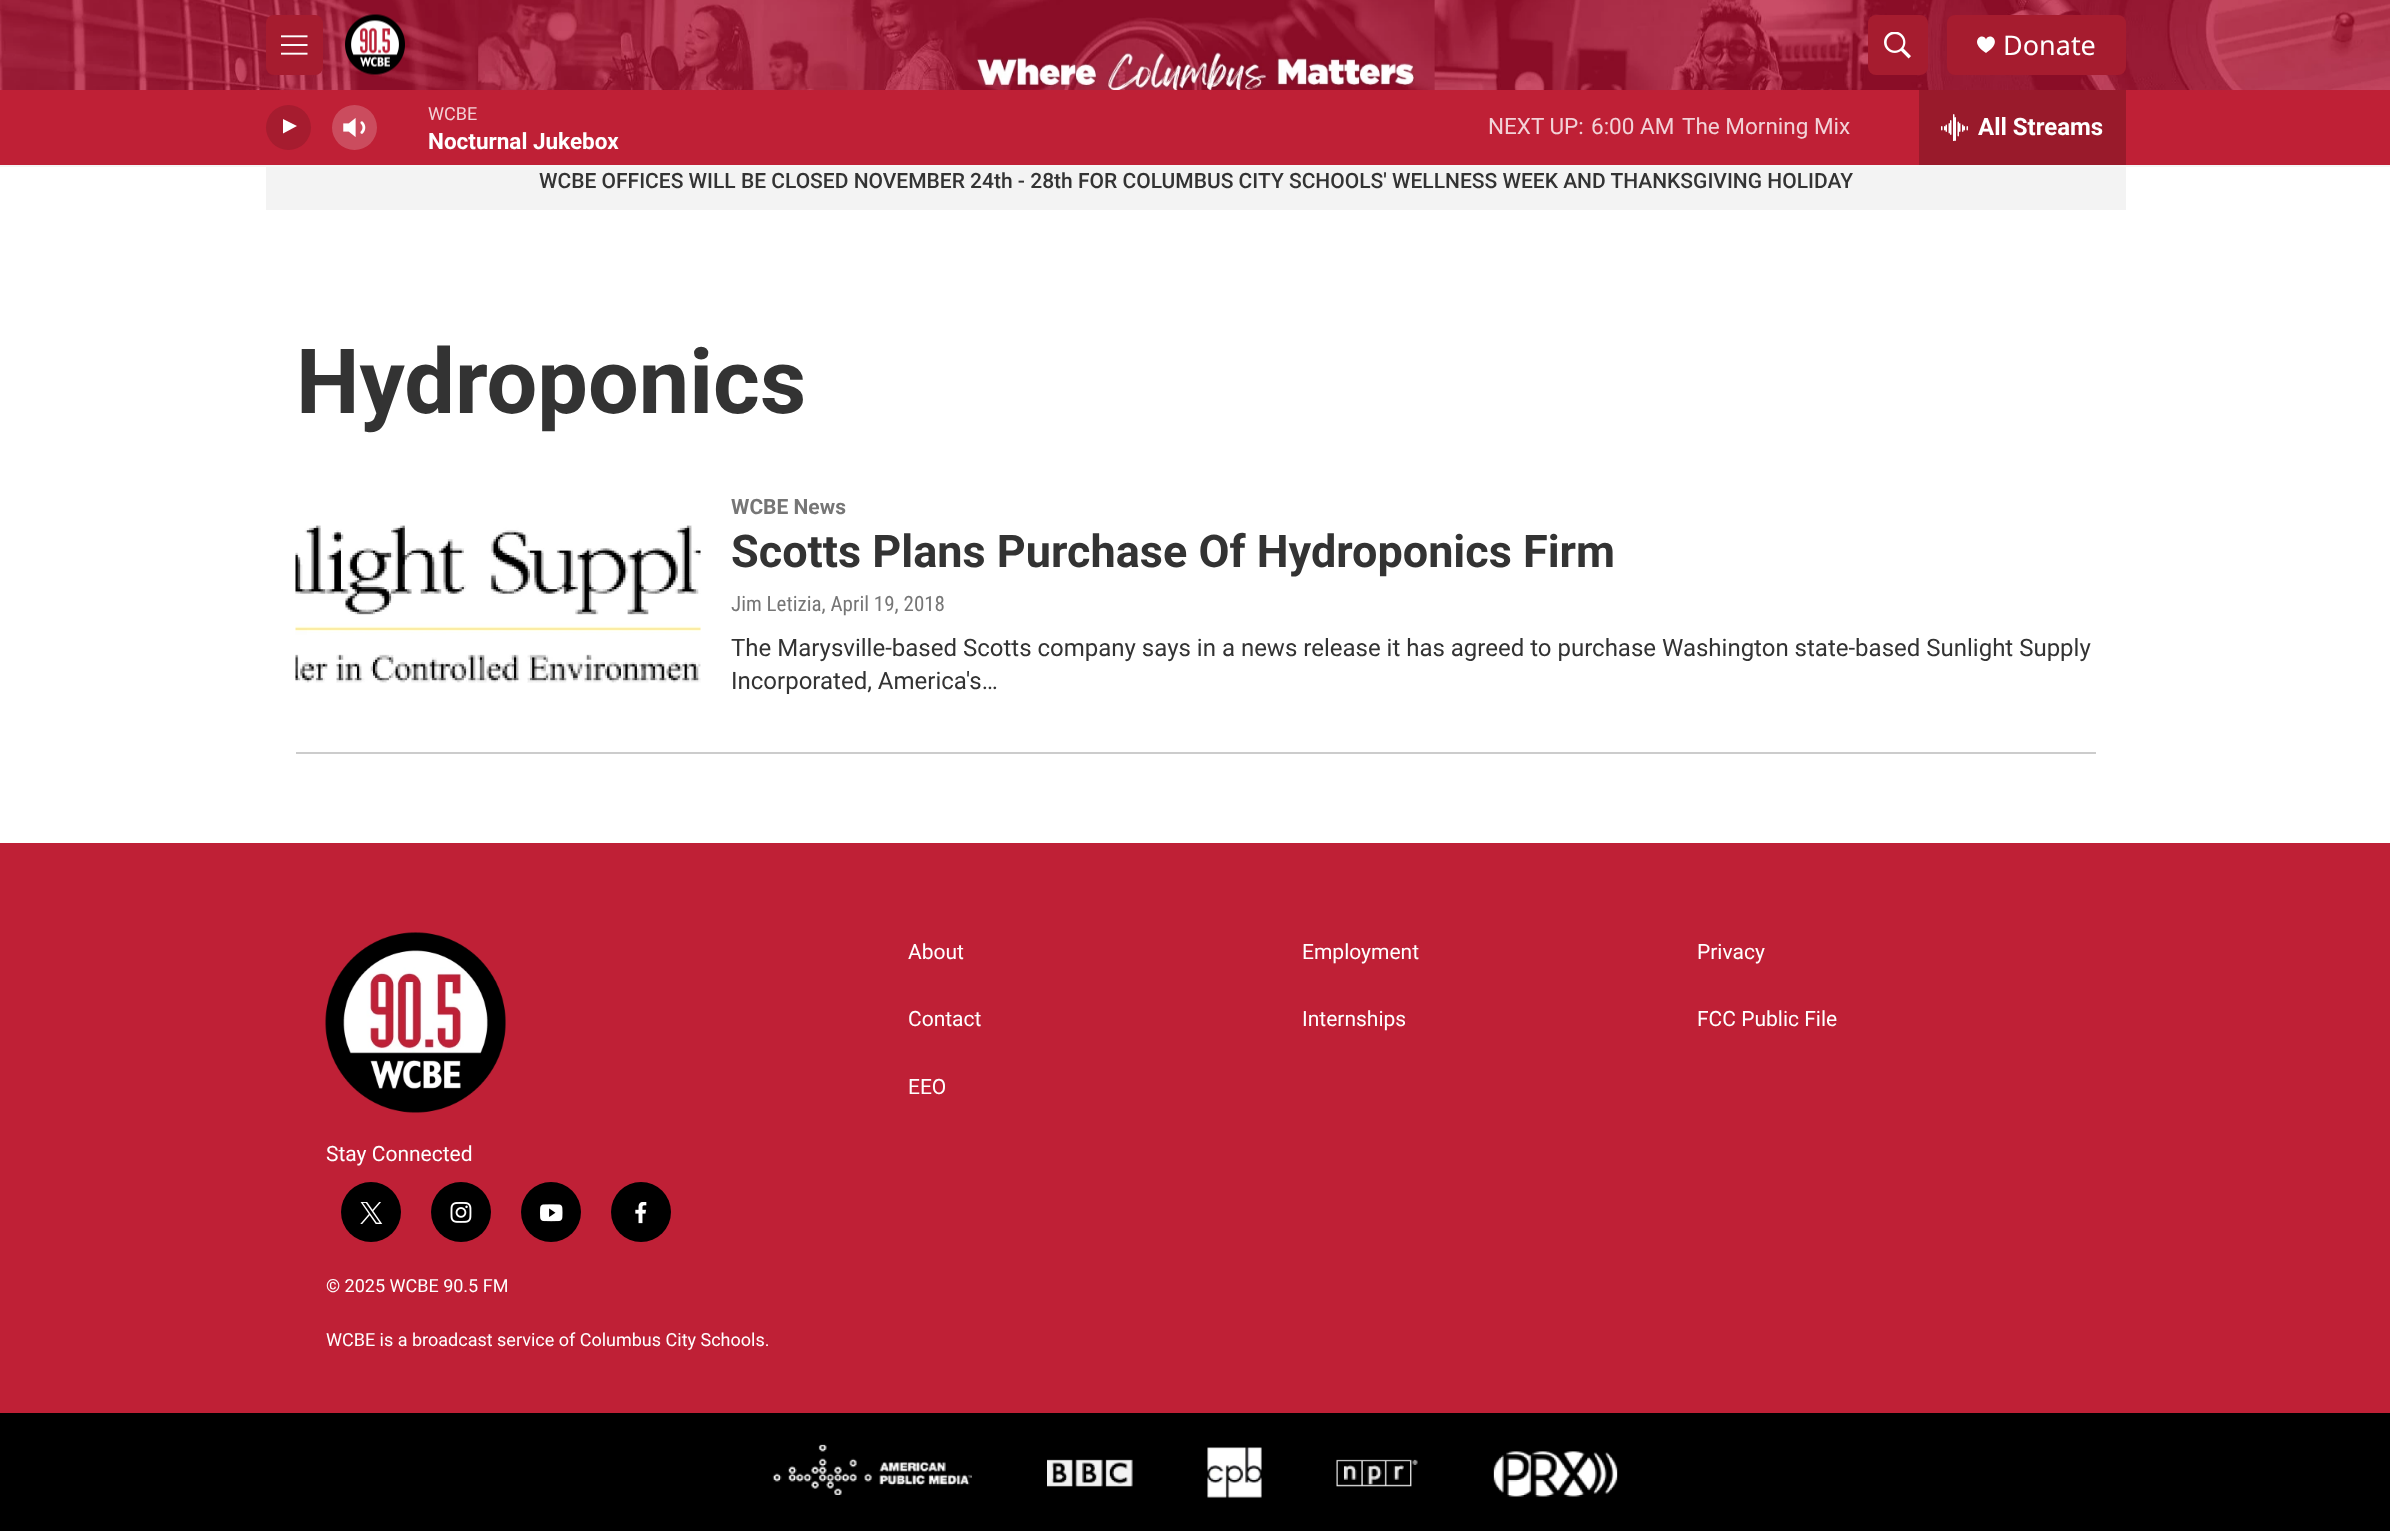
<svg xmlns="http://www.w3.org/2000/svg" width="2390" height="1531">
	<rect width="100%" height="100%" fill="#FFFFFF" />
	<rect x="0" y="165" width="2390" height="2" fill="#F5F5F5" />
	<image x="0" y="0" width="2390" height="90" href="assets/img1.png" />
	<rect x="266" y="15" width="57" height="60" rx="8" fill="#A61C2F" />
	<image x="281" y="35" width="27" height="20" href="assets/img2.png" />
	<image x="345" y="14" width="60" height="61" href="assets/img3.png" />
	<rect x="1868" y="15" width="60" height="60" rx="8" fill="#A61C2F" />
	<image x="1884" y="32" width="27" height="27" href="assets/img4.png" />
	<rect x="1947" y="15" width="179" height="60" rx="8" fill="#A61C2F" />
	<path d="M1986 39.5C1983 31.5 1967.5 41.5 1986 53C2004.5 41.5 1989 31.5 1986 39.5Z" fill="#FFFFFF" />
	<text x="2003" y="55" font-family="Noto Sans" font-size="27" fill="#FFFFFF">Donate</text>
	<rect x="0" y="90" width="2390" height="75" fill="#BF2036" />
	<circle cx="288.5" cy="127.5" r="22.5" fill="#A61C2F" />
	<path d="M283 119L297 126L283 133.5Z" fill="#FFFFFF" />
	<image x="343" y="118" width="23" height="19" href="assets/img5.png" />
	<circle cx="354.5" cy="127.5" r="22.5" fill="#FFFFFF" fill-opacity="0.2" />
	<text x="428" y="120" font-family="Roboto" font-size="18" fill="#F2D2D7">WCBE</text>
	<text x="428" y="149" font-family="'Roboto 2'" font-size="22.5" font-weight="700" fill="#FFFFFF">Nocturnal Jukebox</text>
	<g font-family="Roboto" font-size="22.5" fill="#F2D2D7">
		<text x="1488" y="134">NEXT UP:</text>
		<text x="1591" y="134">6:00 AM</text>
		<text x="1682" y="134">The Morning Mix</text>
	</g>
	<rect x="1919" y="90" width="207" height="75" fill="#991A2B" />
	<image x="1941" y="114" width="27" height="27" href="assets/img6.png" />
	<text x="1978" y="135" font-family="'Roboto 2'" font-size="24" font-weight="700" fill="#FFFFFF">All Streams</text>
	<rect x="266" y="167" width="1860" height="43" fill="#F3F3F3" />
	<text x="539" y="188" font-family="Roboto" font-size="21" font-weight="500" fill="#333333">WCBE OFFICES WILL BE CLOSED NOVEMBER 24th - 28th FOR COLUMBUS CITY SCHOOLS' WELLNESS WEEK AND THANKSGIVING HOLIDAY</text>
	<text x="296" y="413" font-family="Roboto" font-size="90" font-weight="700" fill="#333333">Hydroponics</text>
	<rect x="296" y="752" width="1800" height="2" fill="#CCCCCC" />
	<image x="295" y="525" width="406" height="158" href="assets/img7.png" />
	<text x="731" y="514" font-family="Roboto" font-size="21" font-weight="700" fill="#767676">WCBE News</text>
	<text x="731" y="567" font-family="Roboto" font-size="45" font-weight="700" fill="#333333">Scotts Plans Purchase Of Hydroponics Firm</text>
	<text x="731" y="611" font-family="Roboto Condensed" font-size="21" fill="#767676">Jim Letizia, April 19, 2018</text>
	<g font-family="Roboto" font-size="24" fill="#333333">
		<text x="731" y="656">The Marysville-based Scotts company says in a news release it has agreed to purchase Washington state-based Sunlight Supply</text>
		<text x="731" y="689">Incorporated, America's…</text>
	</g>
	<rect x="0" y="843" width="2390" height="570" fill="#BF2036" />
	<g font-family="Roboto" font-size="21" fill="#FFFFFF">
		<text x="908" y="959">About</text>
		<text x="1302" y="959">Employment</text>
		<text x="1697" y="959">Privacy</text>
		<text x="908" y="1026">Contact</text>
		<text x="1302" y="1026">Internships</text>
		<text x="1697" y="1026">FCC Public File</text>
		<text x="908" y="1094">EEO</text>
	</g>
	<image x="325" y="932" width="181" height="181" href="assets/img8.png" />
	<text x="326" y="1161" font-family="Roboto" font-size="21" fill="#FFFFFF">Stay Connected</text>
	<circle cx="371" cy="1212" r="30" fill="#000000" />
	<image x="360" y="1202" width="23" height="22" href="assets/img9.png" />
	<circle cx="461" cy="1212" r="30" fill="#000000" />
	<image x="450" y="1202" width="22" height="21" href="assets/img10.png" />
	<circle cx="551" cy="1212" r="30" fill="#000000" />
	<image x="540" y="1204" width="23" height="18" href="assets/img11.png" />
	<circle cx="641" cy="1212" r="30" fill="#000000" />
	<image x="635" y="1202" width="12" height="22" href="assets/img12.png" />
	<g font-family="Roboto" font-size="18" fill="#FFFFFF">
		<text x="326" y="1292">© 2025 WCBE 90.5 FM</text>
		<text x="326" y="1346">WCBE is a broadcast service of Columbus City Schools.</text>
	</g>
	<rect x="0" y="1413" width="2390" height="118" fill="#000000" />
	<image x="772" y="1444" width="200" height="51" href="assets/img13.png" />
	<image x="1047" y="1459" width="86" height="28" href="assets/img14.png" />
	<image x="1207" y="1447" width="55" height="51" href="assets/img15.png" />
	<image x="1336" y="1459" width="82" height="28" href="assets/img16.png" />
	<image x="1493" y="1451" width="125" height="46" href="assets/img17.png" />
</svg>
